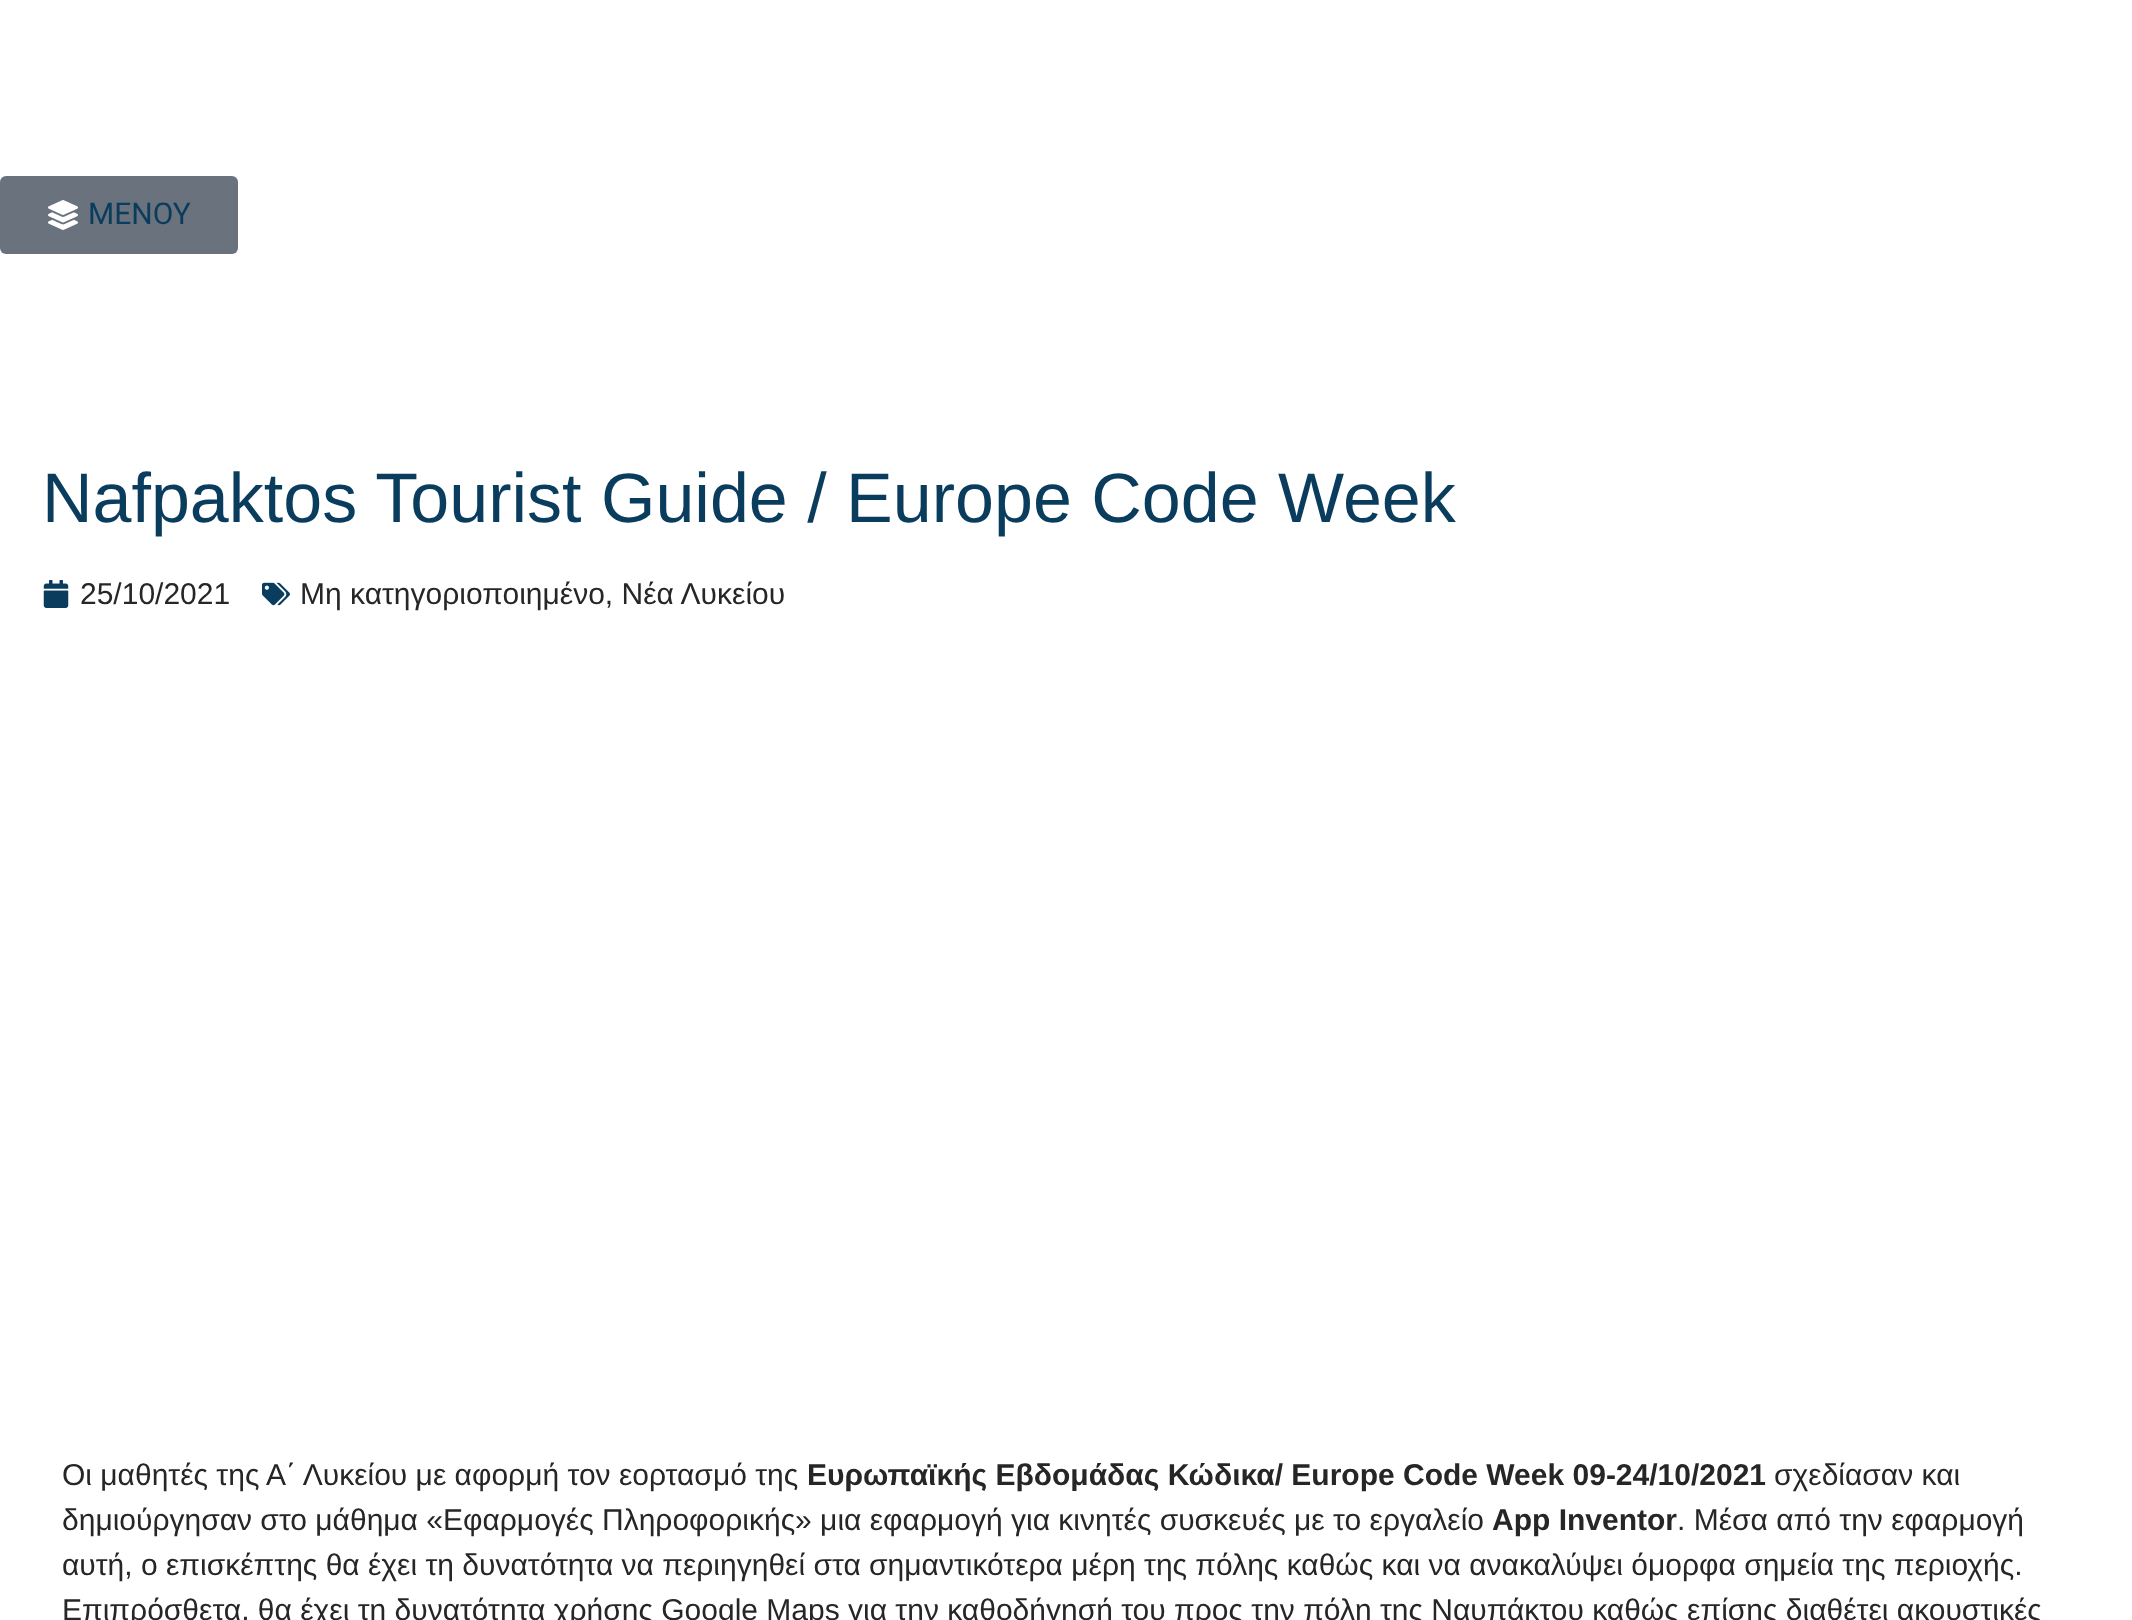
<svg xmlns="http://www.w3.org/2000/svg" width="2132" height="1620">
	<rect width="100%" height="100%" fill="#FFFFFF" />
	<rect x="0" y="176" width="238" height="78" rx="6" fill="#69727D" />
	<image x="48" y="200" width="30" height="30" href="assets/img1.png" />
	<text x="88" y="224" font-family="Roboto" font-size="30" fill="#0A3C5D">ΜΕΝΟΥ</text>
	<text x="42" y="522" font-family="Liberation Sans" font-size="70" fill="#0A3C5D">Nafpaktos Tourist Guide / Europe Code Week</text>
	<image x="43" y="580" width="26" height="28" href="assets/img2.png" />
	<text x="80" y="604" font-family="Liberation Sans" font-size="30" fill="#262626">25/10/2021</text>
	<image x="262" y="582" width="28" height="24" href="assets/img3.png" />
	<g font-family="Liberation Sans" font-size="30" fill="#262626">
		<text x="300" y="604">Μη κατηγοριοποιημένο, Νέα Λυκείου</text>
		<text x="62" y="1485">Οι μαθητές της Α΄ Λυκείου με αφορμή τον εορτασμό της</text>
	</g>
	<text x="807" y="1485" font-family="Liberation Sans" font-size="30" font-weight="700" fill="#262626">Ευρωπαϊκής Εβδομάδας Κώδικα/ Europe Code Week 09-24/10/2021</text>
	<g font-family="Liberation Sans" font-size="30" fill="#262626">
		<text x="1774" y="1485">σχεδίασαν και</text>
		<text x="62" y="1530">δημιούργησαν στο μάθημα «Εφαρμογές Πληροφορικής» μια εφαρμογή για κινητές συσκευές με το εργαλείο</text>
	</g>
	<text x="1492" y="1530" font-family="Liberation Sans" font-size="30" font-weight="700" fill="#262626">App Inventor</text>
	<g font-family="Liberation Sans" font-size="30" fill="#262626">
		<text x="1677" y="1530">. Μέσα από την εφαρμογή</text>
		<text x="62" y="1575">αυτή, ο επισκέπτης θα έχει τη δυνατότητα να περιηγηθεί στα σημαντικότερα μέρη της πόλης καθώς και να ανακαλύψει όμορφα σημεία της περιοχής.</text>
		<text x="62" y="1620">Επιπρόσθετα, θα έχει τη δυνατότητα χρήσης Google Maps για την καθοδήγησή του προς την πόλη της Ναυπάκτου καθώς επίσης διαθέτει ακουστικές</text>
	</g>
</svg>
